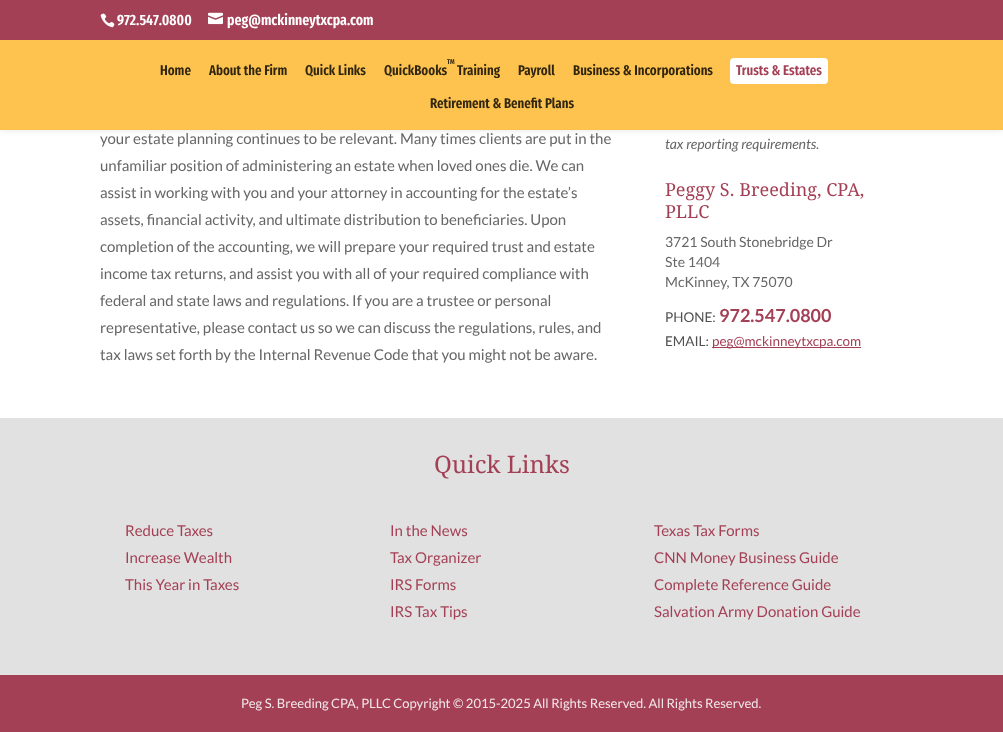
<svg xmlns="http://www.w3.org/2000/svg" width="1003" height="732">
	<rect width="100%" height="100%" fill="#FFFFFF" />
	<rect x="0" y="40" width="1003" height="90" fill="#000000" fill-opacity="0.1" filter="blur(3.5px)" />
	<rect x="0" y="0" width="1003" height="40" fill="#A44055" />
	<image x="100" y="13" width="15" height="15" href="assets/img1.png" />
	<text x="117" y="25" font-family="Fira Sans Extra Condensed" font-size="15" font-weight="600" fill="#FFFFFF">972.547.0800</text>
	<image x="208" y="12" width="15" height="13" href="assets/img2.png" />
	<text x="227" y="25" font-family="Fira Sans Extra Condensed" font-size="15" font-weight="600" fill="#FFFFFF">peg@mckinneytxcpa.com</text>
	<rect x="0" y="40" width="1003" height="90" fill="#FEC34E" />
	<g font-family="Fira Sans Extra Condensed" font-size="14" font-weight="600" fill="#30250F">
		<text x="160" y="75">Home</text>
		<text x="209" y="75">About the Firm</text>
		<text x="305" y="75">Quick Links</text>
	</g>
	<text x="447" y="64" font-family="Fira Sans Extra Condensed" font-size="7" font-weight="600" fill="#30250F">TM</text>
	<g font-family="Fira Sans Extra Condensed" font-size="14" font-weight="600" fill="#30250F">
		<text x="384" y="75">QuickBooks</text>
		<text x="457" y="75">Training</text>
		<text x="518" y="75">Payroll</text>
		<text x="573" y="75">Business &amp; Incorporations</text>
	</g>
	<rect x="730" y="58" width="98" height="26" rx="4" fill="#FFFFFF" />
	<text x="736" y="75" font-family="Fira Sans Extra Condensed" font-size="14" font-weight="600" fill="#A44055">Trusts &amp; Estates</text>
	<text x="430" y="108" font-family="Fira Sans Extra Condensed" font-size="14" font-weight="600" fill="#30250F">Retirement &amp; Benefit Plans</text>
	<g font-family="Lato" font-size="15" fill="#666666">
		<text x="100" y="144">your estate planning continues to be relevant. Many times clients are put in the</text>
		<text x="100" y="171">unfamiliar position of administering an estate when loved ones die. We can</text>
		<text x="100" y="198">assist in working with you and your attorney in accounting for the estate’s</text>
		<text x="100" y="225">assets, financial activity, and ultimate distribution to beneficiaries. Upon</text>
		<text x="100" y="252">completion of the accounting, we will prepare your required trust and estate</text>
		<text x="100" y="279">income tax returns, and assist you with all of your required compliance with</text>
		<text x="100" y="306">federal and state laws and regulations. If you are a trustee or personal</text>
		<text x="100" y="333">representative, please contact us so we can discuss the regulations, rules, and</text>
		<text x="100" y="360">tax laws set forth by the Internal Revenue Code that you might not be aware.</text>
	</g>
	<text x="665" y="149" font-family="Lato" font-size="14" font-style="italic" fill="#666666">tax reporting requirements.</text>
	<g font-family="Droid Serif" font-size="18" fill="#A44055">
		<text x="665" y="196">Peggy S. Breeding, CPA,</text>
		<text x="665" y="218">PLLC</text>
	</g>
	<g font-family="Lato" font-size="14" fill="#666666">
		<text x="665" y="247">3721 South Stonebridge Dr</text>
		<text x="665" y="267">Ste 1404</text>
		<text x="665" y="287">McKinney, TX 75070</text>
	</g>
	<text x="665" y="322" font-family="Lato" font-size="13.5" fill="#505050">PHONE:</text>
	<text x="719" y="322" font-family="Lato" font-size="18" font-weight="700" fill="#A44055">972.547.0800</text>
	<text x="665" y="346" font-family="Lato" font-size="13.5" fill="#505050">EMAIL:</text>
	<rect x="712" y="347" width="149" height="1" fill="#A44055" />
	<text x="712" y="346" font-family="Lato" font-size="13.5" fill="#A44055">peg@mckinneytxcpa.com</text>
	<rect x="0" y="418" width="1003" height="257" fill="#E1E1E1" />
	<text x="434" y="473" font-family="Droid Serif" font-size="24" fill="#A44055">Quick Links</text>
	<g font-family="Lato" font-size="15" fill="#A44055">
		<text x="125" y="536">Reduce Taxes</text>
		<text x="125" y="563">Increase Wealth</text>
		<text x="125" y="590">This Year in Taxes</text>
		<text x="390" y="536">In the News</text>
		<text x="390" y="563">Tax Organizer</text>
		<text x="390" y="590">IRS Forms</text>
		<text x="390" y="617">IRS Tax Tips</text>
		<text x="654" y="536">Texas Tax Forms</text>
		<text x="654" y="563">CNN Money Business Guide</text>
		<text x="654" y="590">Complete Reference Guide</text>
		<text x="654" y="617">Salvation Army Donation Guide</text>
	</g>
	<rect x="0" y="675" width="1003" height="57" fill="#A44055" />
	<text x="241" y="708" font-family="Lato" font-size="13" fill="#F3E6E9">Peg S. Breeding CPA, PLLC Copyright © 2015-2025 All Rights Reserved. All Rights Reserved.</text>
</svg>
